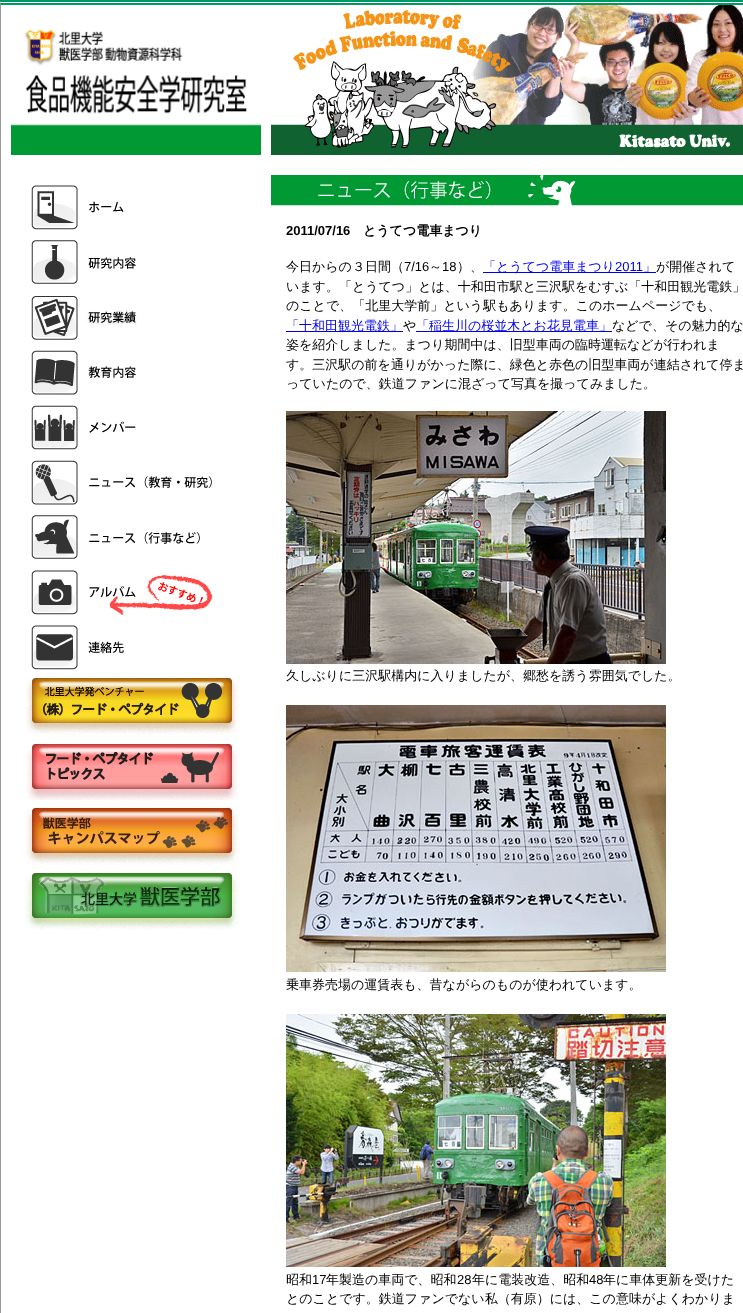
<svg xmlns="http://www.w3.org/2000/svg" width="743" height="1313">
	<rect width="100%" height="100%" fill="#FFFFFF" />
	<rect x="0" y="0" width="743" height="2" fill="#009966" />
	<rect x="0" y="3" width="743" height="2" fill="#009966" />
	<path d="M0 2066V0L1 5V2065Z" fill="#999999" />
	<image x="11" y="29" width="250" height="126" href="assets/img1.png" />
	<image x="31" y="185" width="93" height="45" href="assets/img2.png" />
	<image x="31" y="240" width="105" height="44" href="assets/img3.png" />
	<image x="31" y="296" width="106" height="44" href="assets/img4.png" />
	<image x="31" y="350" width="105" height="45" href="assets/img5.png" />
	<image x="31" y="405" width="105" height="45" href="assets/img6.png" />
	<image x="31" y="460" width="181" height="45" href="assets/img7.png" />
	<image x="31" y="515" width="169" height="44" href="assets/img8.png" />
	<image x="31" y="570" width="181" height="45" href="assets/img9.png" />
	<image x="31" y="625" width="93" height="45" href="assets/img10.png" />
	<image x="25" y="676" width="214" height="59" href="assets/img11.png" />
	<image x="26" y="744" width="212" height="56" href="assets/img12.png" />
	<image x="25" y="806" width="214" height="59" href="assets/img13.png" />
	<image x="25" y="871" width="214" height="59" href="assets/img14.png" />
	<image x="271" y="5" width="472" height="150" href="assets/img15.png" />
	<image x="271" y="175" width="472" height="31" href="assets/img16.png" />
	<text x="286" y="235" font-family="Liberation Sans" font-size="13" font-weight="700" fill="#000000">2011/07/16</text>
	<text x="363" y="235" font-family="WenQuanYi Zen Hei" font-size="13" font-weight="700" fill="#000000">とうてつ電車まつり</text>
	<text x="286" y="271" font-family="WenQuanYi Zen Hei" font-size="13" font-weight="500" fill="#000000">今日からの３日間（</text>
	<text x="404" y="271" font-family="Liberation Sans" font-size="13" fill="#000000">7/16</text>
	<text x="429" y="271" font-family="WenQuanYi Zen Hei" font-size="13" font-weight="500" fill="#000000">～</text>
	<text x="442" y="271" font-family="Liberation Sans" font-size="13" fill="#000000">18</text>
	<text x="457" y="271" font-family="WenQuanYi Zen Hei" font-size="13" font-weight="500" fill="#000000">）、</text>
	<rect x="483" y="272" width="173" height="1" fill="#0000EE" />
	<text x="483" y="271" font-family="WenQuanYi Zen Hei" font-size="13" font-weight="500" fill="#0000EE">「とうてつ電車まつり</text>
	<text x="615" y="271" font-family="Liberation Sans" font-size="13" fill="#0000EE">2011</text>
	<text x="643" y="271" font-family="WenQuanYi Zen Hei" font-size="13" font-weight="500" fill="#0000EE">」</text>
	<g font-family="WenQuanYi Zen Hei" font-size="13" font-weight="500" fill="#000000">
		<text x="656" y="271">が開催されて</text>
		<text x="286" y="291">います。「とうてつ」とは、十和田市駅と三沢駅をむすぶ「十和田観光電鉄」</text>
		<text x="286" y="310">のことで、「北里大学前」という駅もあります。このホームページでも、</text>
	</g>
	<rect x="286" y="331" width="117" height="1" fill="#0000EE" />
	<text x="286" y="330" font-family="WenQuanYi Zen Hei" font-size="13" font-weight="500" fill="#0000EE">「十和田観光電鉄」</text>
	<text x="403" y="330" font-family="WenQuanYi Zen Hei" font-size="13" font-weight="500" fill="#000000">や</text>
	<rect x="416" y="331" width="196" height="1" fill="#0000EE" />
	<text x="416" y="330" font-family="WenQuanYi Zen Hei" font-size="13" font-weight="500" fill="#0000EE">「稲生川の桜並木とお花見電車」</text>
	<g font-family="WenQuanYi Zen Hei" font-size="13" font-weight="500" fill="#000000">
		<text x="612" y="330">などで、その魅力的な</text>
		<text x="286" y="349">姿を紹介しました。まつり期間中は、旧型車両の臨時運転などが行われま</text>
		<text x="286" y="369">す。三沢駅の前を通りがかった際に、緑色と赤色の旧型車両が連結されて停ま</text>
		<text x="286" y="388">っていたので、鉄道ファンに混ざって写真を撮ってみました。</text>
	</g>
	<image x="286" y="411" width="380" height="253" href="assets/img17.png" />
	<text x="286" y="680" font-family="WenQuanYi Zen Hei" font-size="13" font-weight="500" fill="#000000">久しぶりに三沢駅構内に入りましたが、郷愁を誘う雰囲気でした。</text>
	<image x="286" y="705" width="380" height="267" href="assets/img18.png" />
	<text x="286" y="989" font-family="WenQuanYi Zen Hei" font-size="13" font-weight="500" fill="#000000">乗車券売場の運賃表も、昔ながらのものが使われています。</text>
	<image x="286" y="1014" width="380" height="253" href="assets/img19.png" />
	<text x="286" y="1284" font-family="WenQuanYi Zen Hei" font-size="13" font-weight="500" fill="#000000">昭和</text>
	<text x="312" y="1284" font-family="Liberation Sans" font-size="13" fill="#000000">17</text>
	<text x="326" y="1284" font-family="WenQuanYi Zen Hei" font-size="13" font-weight="500" fill="#000000">年製造の車両で、昭和</text>
	<text x="457" y="1284" font-family="Liberation Sans" font-size="13" fill="#000000">28</text>
	<text x="472" y="1284" font-family="WenQuanYi Zen Hei" font-size="13" font-weight="500" fill="#000000">年に電装改造、昭和</text>
	<text x="589" y="1284" font-family="Liberation Sans" font-size="13" fill="#000000">48</text>
	<g font-family="WenQuanYi Zen Hei" font-size="13" font-weight="500" fill="#000000">
		<text x="603" y="1284">年に車体更新を受けた</text>
		<text x="286" y="1303">とのことです。鉄道ファンでない私（有原）には、この意味がよくわかりま</text>
	</g>
</svg>
